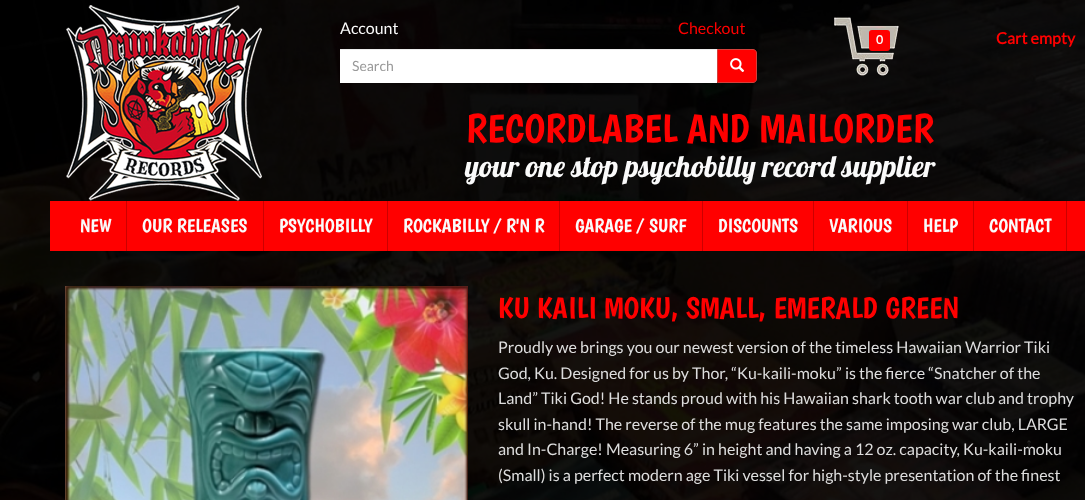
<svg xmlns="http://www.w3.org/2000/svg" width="1085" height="500">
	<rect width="100%" height="100%" fill="#FFFFFF" />
	<image x="0" y="0" width="1085" height="500" href="assets/img1.png" />
	<image x="66" y="5" width="196" height="196" href="assets/img2.png" />
	<text x="340" y="34" font-family="Lato" font-size="16" fill="#FAFAFA">Account</text>
	<text x="678" y="34" font-family="Lato" font-size="16" fill="#FF0000">Checkout</text>
	<rect x="340" y="50" width="377" height="33" fill="#FFFFFF" />
	<rect x="340" y="49" width="378" height="1" fill="#ECECEC" />
	<text x="352" y="71" font-family="Lato" font-size="14" fill="#999999">Search</text>
	<path d="M717.5 49.5H753C755 49.5 756.5 51 756.5 53V79C756.5 81 755 82.5 753 82.5H717.5Z" fill="#FF0000" stroke="#D43F3A" />
	<image x="730" y="58" width="15" height="14" href="assets/img3.png" />
	<image x="834" y="17" width="65" height="59" href="assets/img4.png" />
	<rect x="869" y="30" width="21" height="21" rx="3" fill="#FF0000" />
	<text x="876" y="44" font-family="Lato" font-size="12" font-weight="700" fill="#FAFAFA">0</text>
	<text x="996" y="44" font-family="Lato" font-size="16" font-weight="700" fill="#FF0000">Cart empty</text>
	<text x="466" y="142" font-family="Boogaloo" font-size="40" fill="#FF0000">RECORDLABEL AND MAILORDER</text>
	<text x="465" y="177" font-family="Lobster" font-size="30" fill="#FAFAFA">your one stop psychobilly record supplier</text>
	<rect x="50" y="201" width="1035" height="50" fill="#FF0000" />
	<rect x="126" y="201" width="1" height="50" fill="#CC0000" />
	<text x="80" y="232" font-family="Boogaloo" font-size="19" fill="#FAFAFA">NEW</text>
	<rect x="263" y="201" width="1" height="50" fill="#CC0000" />
	<text x="142" y="232" font-family="Boogaloo" font-size="19" fill="#FAFAFA">OUR RELEASES</text>
	<rect x="387" y="201" width="1" height="50" fill="#CC0000" />
	<text x="279" y="232" font-family="Boogaloo" font-size="19" fill="#FAFAFA">PSYCHOBILLY</text>
	<rect x="559" y="201" width="1" height="50" fill="#CC0000" />
	<text x="403" y="232" font-family="Boogaloo" font-size="19" fill="#FAFAFA">ROCKABILLY / R'N R</text>
	<rect x="702" y="201" width="1" height="50" fill="#CC0000" />
	<text x="575" y="232" font-family="Boogaloo" font-size="19" fill="#FAFAFA">GARAGE / SURF</text>
	<rect x="813" y="201" width="1" height="50" fill="#CC0000" />
	<text x="718" y="232" font-family="Boogaloo" font-size="19" fill="#FAFAFA">DISCOUNTS</text>
	<rect x="907" y="201" width="1" height="50" fill="#CC0000" />
	<text x="829" y="232" font-family="Boogaloo" font-size="19" fill="#FAFAFA">VARIOUS</text>
	<rect x="973" y="201" width="1" height="50" fill="#CC0000" />
	<text x="923" y="232" font-family="Boogaloo" font-size="19" fill="#FAFAFA">HELP</text>
	<rect x="1066" y="201" width="1" height="50" fill="#CC0000" />
	<text x="989" y="232" font-family="Boogaloo" font-size="19" fill="#FAFAFA">CONTACT</text>
	<image x="65" y="286" width="403" height="214" href="assets/img5.png" />
	<text x="498" y="318" font-family="Boogaloo" font-size="30" fill="#FF0000">KU KAILI MOKU, SMALL, EMERALD GREEN</text>
	<g font-family="Lato" font-size="16" fill="#DDDDDD">
		<text x="498" y="353">Proudly we brings you our newest version of the timeless Hawaiian Warrior Tiki</text>
		<text x="498" y="379">God, Ku. Designed for us by Thor, “Ku-kaili-moku” is the fierce “Snatcher of the</text>
		<text x="498" y="404">Land” Tiki God! He stands proud with his Hawaiian shark tooth war club and trophy</text>
		<text x="498" y="430">skull in-hand! The reverse of the mug features the same imposing war club, LARGE</text>
		<text x="498" y="455">and In-Charge! Measuring 6” in height and having a 12 oz. capacity, Ku-kaili-moku</text>
		<text x="498" y="481">(Small) is a perfect modern age Tiki vessel for high-style presentation of the finest</text>
	</g>
	<text x="1025" y="449" font-family="Liberation Sans" font-size="16" fill="#292827">↑</text>
</svg>
